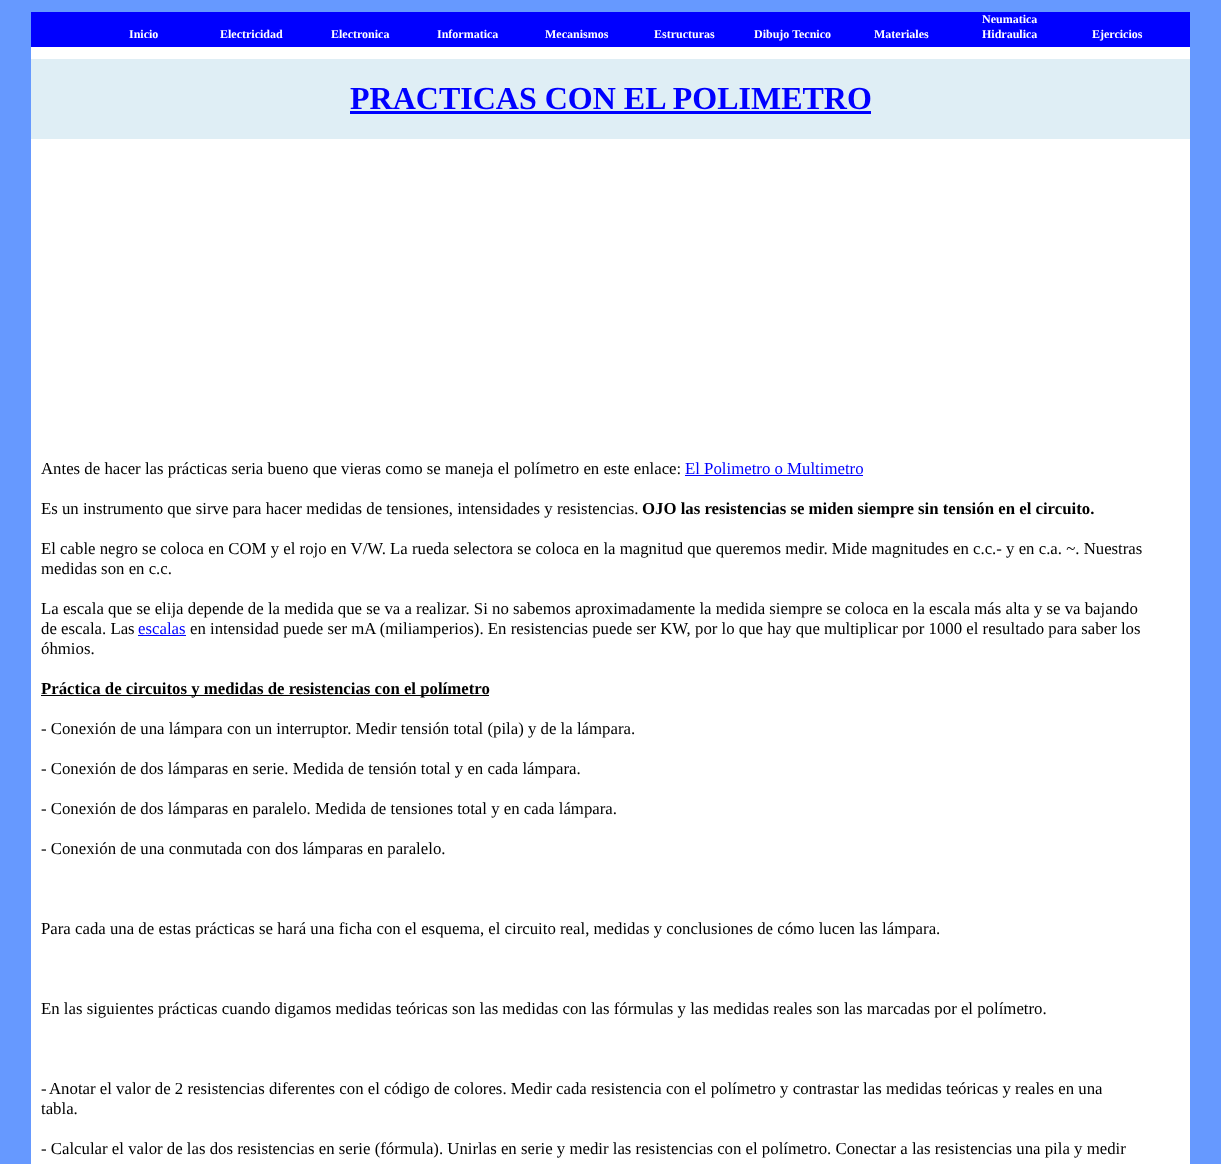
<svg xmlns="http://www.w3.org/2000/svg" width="1221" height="1164">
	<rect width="100%" height="100%" fill="#6699FF" />
	<rect x="31" y="47" width="1159" height="1117" fill="#FFFFFF" />
	<rect x="31" y="12" width="1159" height="35" fill="#0000FF" />
	<g font-family="Liberation Serif" font-size="12" font-weight="700" fill="#FFFFFF">
		<text x="129" y="38">Inicio</text>
		<text x="220" y="38">Electricidad</text>
		<text x="331" y="38">Electronica</text>
		<text x="437" y="38">Informatica</text>
		<text x="545" y="38">Mecanismos</text>
		<text x="654" y="38">Estructuras</text>
		<text x="754" y="38">Dibujo Tecnico</text>
		<text x="874" y="38">Materiales</text>
		<text x="982" y="23">Neumatica</text>
		<text x="982" y="38">Hidraulica</text>
		<text x="1092" y="38">Ejercicios</text>
	</g>
	<rect x="31" y="59" width="1159" height="80" fill="#DFEEF5" />
	<text x="350" y="109" font-family="Liberation Serif" font-size="32" font-weight="700" fill="#0000FF">PRACTICAS CON EL POLIMETRO</text>
	<rect x="350" y="111" width="521" height="3" fill="#0000FF" />
	<text x="41" y="474" font-family="Liberation Serif" font-size="16.8" fill="#000000">Antes de hacer las prácticas seria bueno que vieras como se maneja el polímetro en este enlace:</text>
	<text x="685" y="474" font-family="Liberation Serif" font-size="16.8" fill="#0000FF">El Polimetro o Multimetro</text>
	<rect x="685" y="475" width="178" height="1" fill="#0000FF" />
	<text x="41" y="514" font-family="Liberation Serif" font-size="16.8" fill="#000000">Es un instrumento que sirve para hacer medidas de tensiones, intensidades y resistencias.</text>
	<g font-family="Liberation Serif" font-size="16.8" font-weight="700" fill="#000000">
		<text x="642" y="514">OJO las resistencias se miden siempre</text>
		<text x="918" y="514">sin tensión en el circuito.</text>
	</g>
	<g font-family="Liberation Serif" font-size="16.8" fill="#000000">
		<text x="41" y="554">El cable negro se coloca en COM y el rojo en V/W. La rueda selectora se coloca en la magnitud que queremos medir. Mide magnitudes en c.c.- y en c.a. ~. Nuestras</text>
		<text x="41" y="574">medidas son en c.c.</text>
		<text x="41" y="614">La escala que se elija depende de la medida que se va a realizar. Si no sabemos aproximadamente la medida siempre se coloca en la escala más alta y se va bajando</text>
		<text x="41" y="634">de escala. Las</text>
	</g>
	<text x="138" y="634" font-family="Liberation Serif" font-size="16.8" fill="#0000FF">escalas</text>
	<rect x="138" y="635" width="48" height="1" fill="#0000FF" />
	<g font-family="Liberation Serif" font-size="16.8" fill="#000000">
		<text x="190" y="634">en intensidad puede ser mA (miliamperios). En resistencias puede ser KW, por lo que hay que multiplicar por 1000 el resultado para saber los</text>
		<text x="41" y="654">óhmios.</text>
	</g>
	<rect x="41" y="695" width="448" height="1" fill="#000000" />
	<text x="41" y="694" font-family="Liberation Serif" font-size="16.8" font-weight="700" fill="#000000">Práctica de circuitos y medidas de resistencias con el polímetro</text>
	<g font-family="Liberation Serif" font-size="16.8" fill="#000000">
		<text x="41" y="734">- Conexión de una lámpara con un interruptor. Medir tensión total (pila) y de la lámpara.</text>
		<text x="41" y="774">- Conexión de dos lámparas en serie. Medida de tensión total y en cada lámpara.</text>
		<text x="41" y="814">- Conexión de dos lámparas en paralelo. Medida de tensiones total y en cada lámpara.</text>
		<text x="41" y="854">- Conexión de una conmutada con dos lámparas en paralelo.</text>
		<text x="41" y="934">Para cada una de estas prácticas se hará una ficha con el esquema, el circuito real, medidas y conclusiones de cómo lucen las lámpara.</text>
		<text x="41" y="1014">En las siguientes prácticas cuando digamos medidas teóricas son las medidas con las fórmulas y las medidas reales son las marcadas por el polímetro.</text>
		<text x="41" y="1094">-</text>
		<text x="49" y="1094">Anotar el valor de 2 resistencias diferentes con el código de colores. Medir cada resistencia con el polímetro y contrastar las medidas teóricas y reales en una</text>
		<text x="41" y="1114">tabla.</text>
		<text x="41" y="1154">- Calcular el valor de las dos resistencias en serie (fórmula). Unirlas en serie y medir las resistencias con el polímetro. Conectar a las resistencias una pila y medir</text>
	</g>
</svg>
